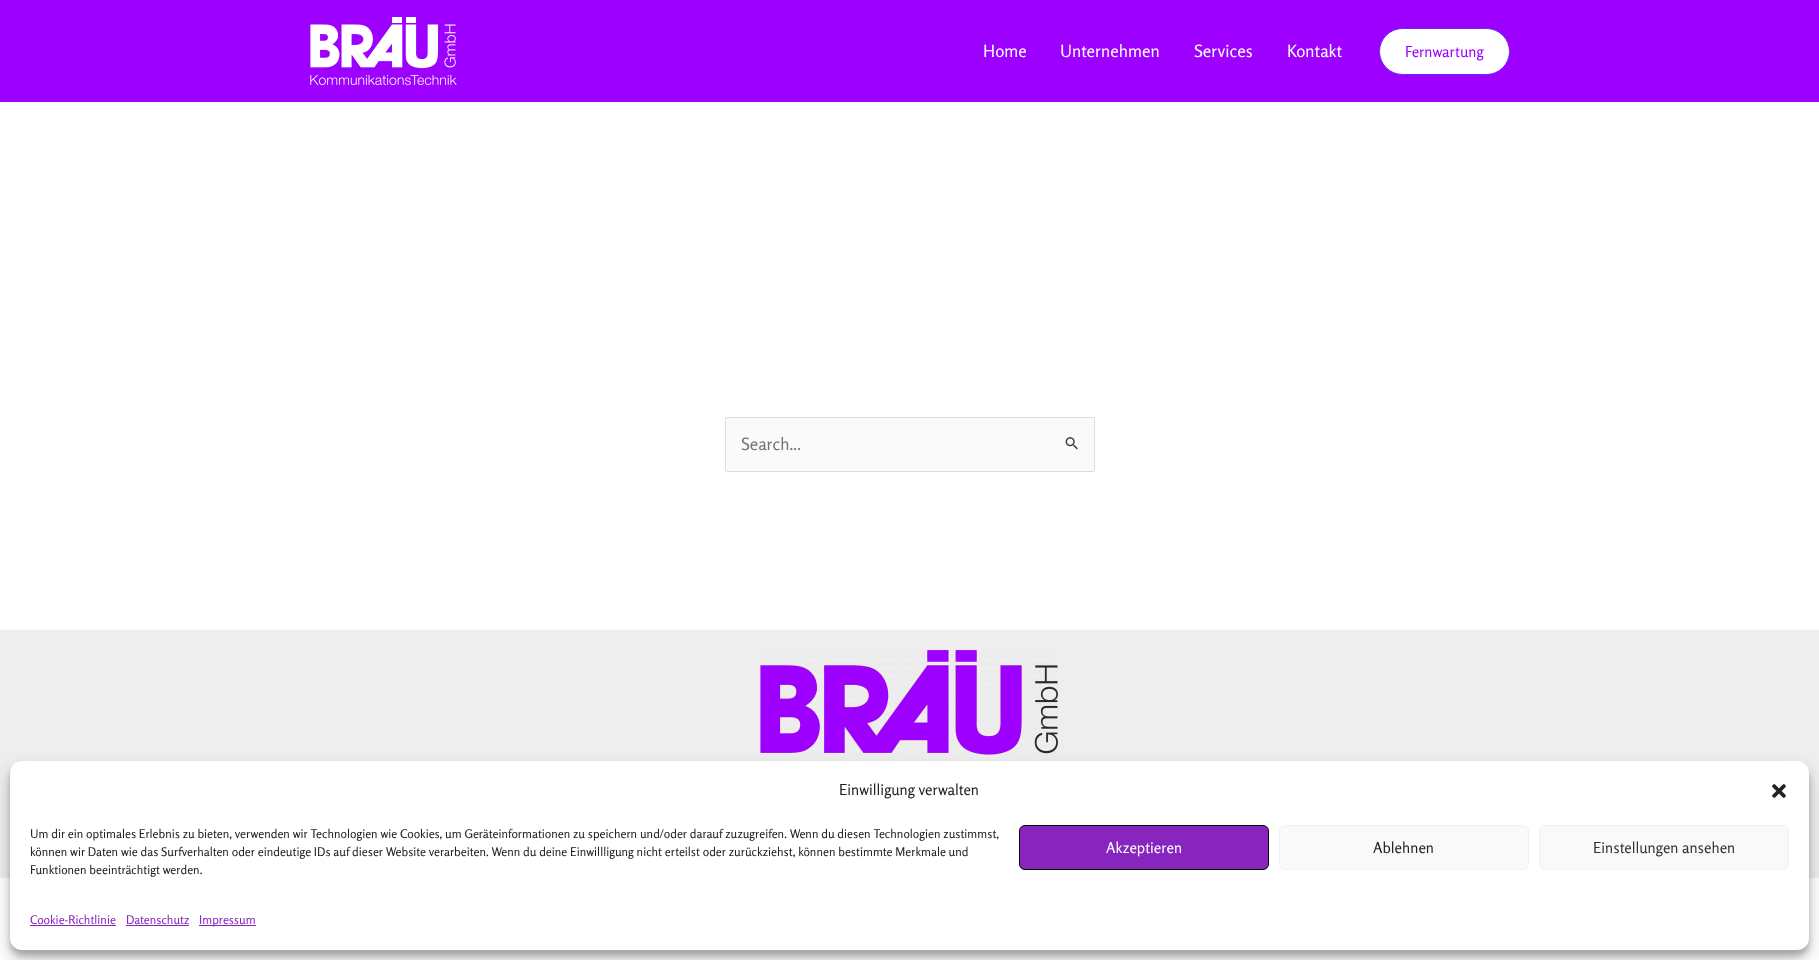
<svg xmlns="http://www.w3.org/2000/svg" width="1819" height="960">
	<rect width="100%" height="100%" fill="#FFFFFF" />
	<rect x="0" y="0" width="1819" height="102" fill="#9D00FF" />
	<image x="310" y="17" width="147" height="68" href="assets/img1.png" />
	<g font-family="Rosario" font-size="17" fill="#FFFFFF">
		<text x="983" y="57">Home</text>
		<text x="1060" y="57">Unternehmen</text>
		<text x="1194" y="57">Services</text>
		<text x="1287" y="57">Kontakt</text>
	</g>
	<rect x="1379.5" y="28.5" width="130" height="46" rx="23" fill="#FFFFFF" stroke="#6528F7" />
	<text x="1405" y="57" font-family="Rosario" font-size="15" fill="#9D00FF">Fernwartung</text>
	<rect x="725.5" y="417.5" width="369" height="54" rx="1.5" fill="#FAFAFA" stroke="#DDDDDD" />
	<text x="741" y="450" font-family="Rosario" font-size="17" fill="#757575">Search...</text>
	<image x="1065" y="437" width="13" height="13" href="assets/img2.png" />
	<rect x="0" y="630" width="1819" height="248" fill="#EEEEEE" />
	<image x="760" y="650" width="298" height="105" href="assets/img3.png" />
	<rect x="10" y="767" width="1799" height="189" rx="12" fill="#000000" fill-opacity="0.23" filter="blur(3px)" />
	<rect x="10" y="771" width="1799" height="189" rx="12" fill="#000000" fill-opacity="0.19" filter="blur(10px)" />
	<rect x="10" y="761" width="1799" height="189" rx="12" fill="#FFFFFF" />
	<text x="839" y="795" font-family="Rosario" font-size="15" fill="#222222">Einwilligung verwalten</text>
	<image x="1772" y="784" width="14" height="14" href="assets/img4.png" />
	<g font-family="Rosario" font-size="12" fill="#222222">
		<text x="30" y="838">Um dir ein optimales Erlebnis zu bieten, verwenden wir Technologien wie Cookies, um Geräteinformationen zu speichern und/oder darauf zuzugreifen. Wenn du diesen Technologien zustimmst,</text>
		<text x="30" y="856">können wir Daten wie das Surfverhalten oder eindeutige IDs auf dieser Website verarbeiten. Wenn du deine Einwillligung nicht erteilst oder zurückziehst, können bestimmte Merkmale und</text>
		<text x="30" y="874">Funktionen beeinträchtigt werden.</text>
	</g>
	<rect x="1019.5" y="825.5" width="249" height="44" rx="5.5" fill="#8825BF" stroke="#000000" />
	<text x="1106" y="853" font-family="Rosario" font-size="15" fill="#FFFFFF">Akzeptieren</text>
	<rect x="1279.5" y="825.5" width="249" height="44" rx="5.5" fill="#F9F9F9" stroke="#F2F2F2" />
	<text x="1373" y="853" font-family="Rosario" font-size="15" fill="#222222">Ablehnen</text>
	<rect x="1539.5" y="825.5" width="249" height="44" rx="5.5" fill="#F9F9F9" stroke="#F2F2F2" />
	<text x="1593" y="853" font-family="Rosario" font-size="15" fill="#333333">Einstellungen ansehen</text>
	<text x="30" y="924" font-family="Rosario" font-size="12" fill="#8825BF">Cookie-Richtlinie</text>
	<rect x="30" y="925" width="86" height="1" fill="#8825BF" />
	<text x="126" y="924" font-family="Rosario" font-size="12" fill="#8825BF">Datenschutz</text>
	<rect x="126" y="925" width="63" height="1" fill="#8825BF" />
	<rect x="199" y="925" width="57" height="1" fill="#8825BF" />
	<text x="199" y="924" font-family="Rosario" font-size="12" fill="#8825BF">Impressum</text>
</svg>
